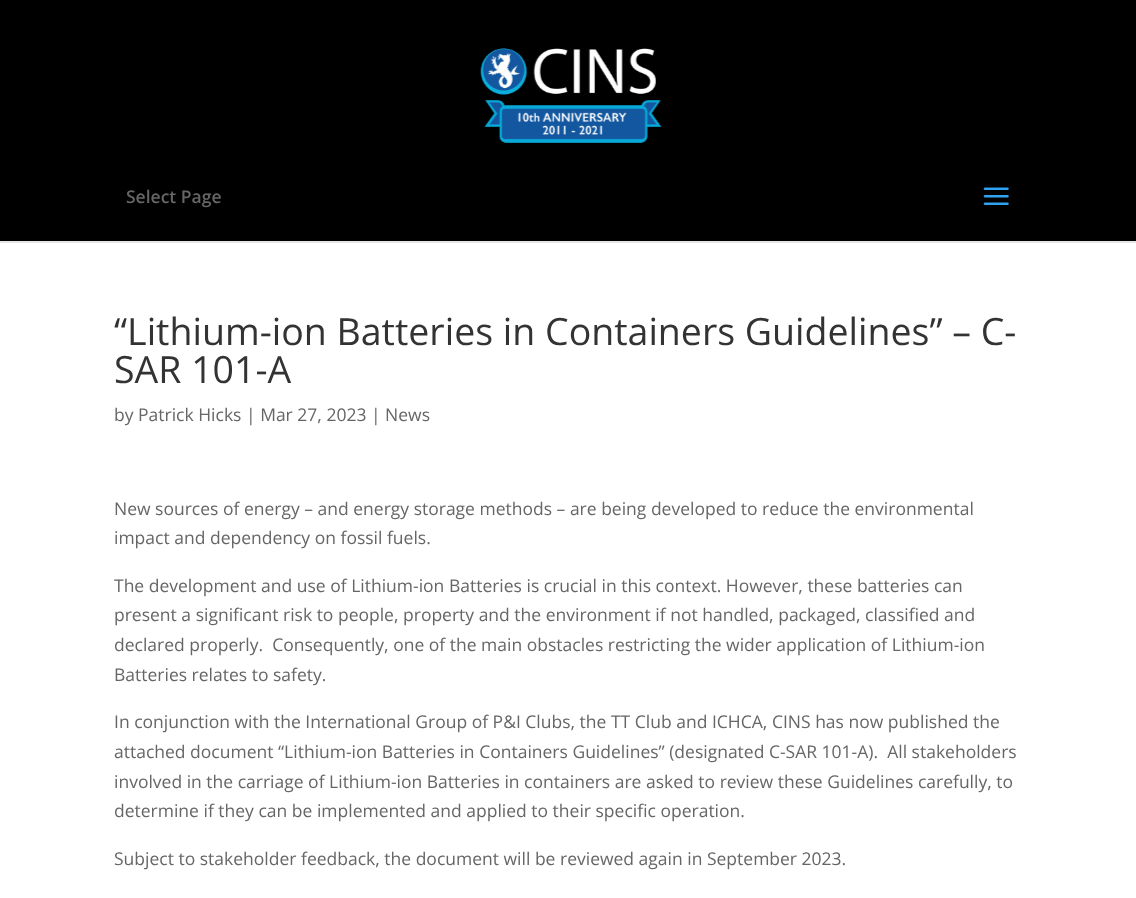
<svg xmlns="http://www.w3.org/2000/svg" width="1136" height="898">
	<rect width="100%" height="100%" fill="#FFFFFF" />
	<rect x="0" y="241" width="1136" height="2" fill="#E6E6E6" />
	<rect x="0" y="0" width="1136" height="241" fill="#000000" />
	<image x="480" y="48" width="182" height="95" href="assets/img1.png" />
	<text x="126" y="203" font-family="Open Sans" font-size="17.5" font-weight="600" fill="#666666">Select Page</text>
	<image x="983" y="187" width="26" height="18" href="assets/img2.png" />
	<g font-family="Open Sans" font-size="37.5" fill="#333333">
		<text x="114" y="345">“Lithium-ion Batteries in Containers Guidelines” – C-</text>
		<text x="114" y="383">SAR 101-A</text>
	</g>
	<g font-family="Open Sans" font-size="17.5" fill="#666666">
		<text x="114" y="421">by Patrick Hicks | Mar 27, 2023 | News</text>
		<text x="114" y="515">New sources of energy – and energy storage methods – are being developed to reduce the environmental</text>
		<text x="114" y="544">impact and dependency on fossil fuels.</text>
		<text x="114" y="592">The development and use of Lithium-ion Batteries is crucial in this context. However, these batteries can</text>
		<text x="114" y="621">present a significant risk to people, property and the environment if not handled, packaged, classified and</text>
		<text x="114" y="651" xml:space="preserve">declared properly.  Consequently, one of the main obstacles restricting the wider application of Lithium-ion</text>
		<text x="114" y="681">Batteries relates to safety.</text>
		<text x="114" y="728">In conjunction with the International Group of P&amp;I Clubs, the TT Club and ICHCA, CINS has now published the</text>
		<text x="114" y="758" xml:space="preserve">attached document “Lithium-ion Batteries in Containers Guidelines” (designated C-SAR 101-A).  All stakeholders</text>
		<text x="114" y="788">involved in the carriage of Lithium-ion Batteries in containers are asked to review these Guidelines carefully, to</text>
		<text x="114" y="817">determine if they can be implemented and applied to their specific operation.</text>
		<text x="114" y="865">Subject to stakeholder feedback, the document will be reviewed again in September 2023.</text>
	</g>
</svg>
